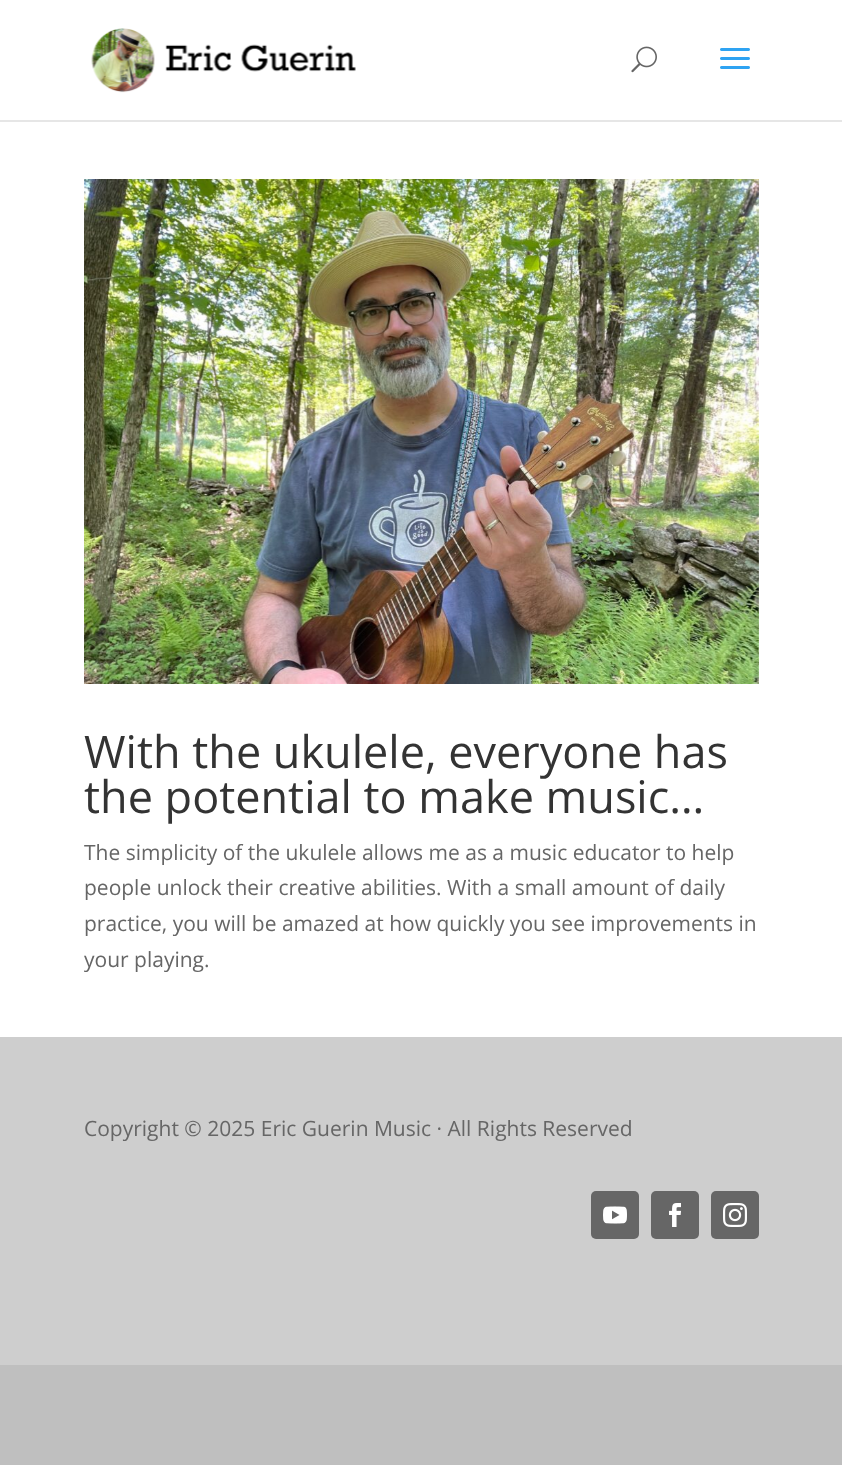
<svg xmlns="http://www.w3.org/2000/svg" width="842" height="1465">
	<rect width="100%" height="100%" fill="#BFBFBF" />
	<rect x="0" y="120" width="842" height="2" fill="#E6E6E6" />
	<rect x="0" y="0" width="842" height="120" fill="#FFFFFF" />
	<image x="91" y="28" width="265" height="65" href="assets/img1.png" />
	<image x="631" y="46" width="26" height="27" href="assets/img2.png" />
	<image x="720" y="48" width="30" height="21" href="assets/img3.png" />
	<rect x="0" y="122" width="842" height="915" fill="#FFFFFF" />
	<image x="84" y="179" width="675" height="505" href="assets/img4.png" />
	<g font-family="Open Sans" font-size="45" fill="#333333">
		<text x="84" y="768">With the ukulele, everyone has</text>
		<text x="84" y="813">the potential to make music…</text>
	</g>
	<g font-family="Open Sans" font-size="21" fill="#666666">
		<text x="84" y="860">The simplicity of the ukulele allows me as a music educator to help</text>
		<text x="84" y="895">people unlock their creative abilities. With a small amount of daily</text>
		<text x="84" y="931">practice, you will be amazed at how quickly you see improvements in</text>
		<text x="84" y="967">your playing.</text>
	</g>
	<rect x="0" y="1037" width="842" height="328" fill="#CECECE" />
	<text x="84" y="1136" font-family="Open Sans" font-size="21" fill="#666666">Copyright © 2025 Eric Guerin Music · All Rights Reserved</text>
	<rect x="591" y="1191" width="48" height="48" rx="5" fill="#666666" />
	<image x="603" y="1206" width="24" height="18" href="assets/img5.png" />
	<rect x="651" y="1191" width="48" height="48" rx="5" fill="#666666" />
	<image x="669" y="1203" width="12" height="24" href="assets/img6.png" />
	<rect x="711" y="1191" width="48" height="48" rx="5" fill="#666666" />
	<image x="723" y="1203" width="24" height="24" href="assets/img7.png" />
</svg>
